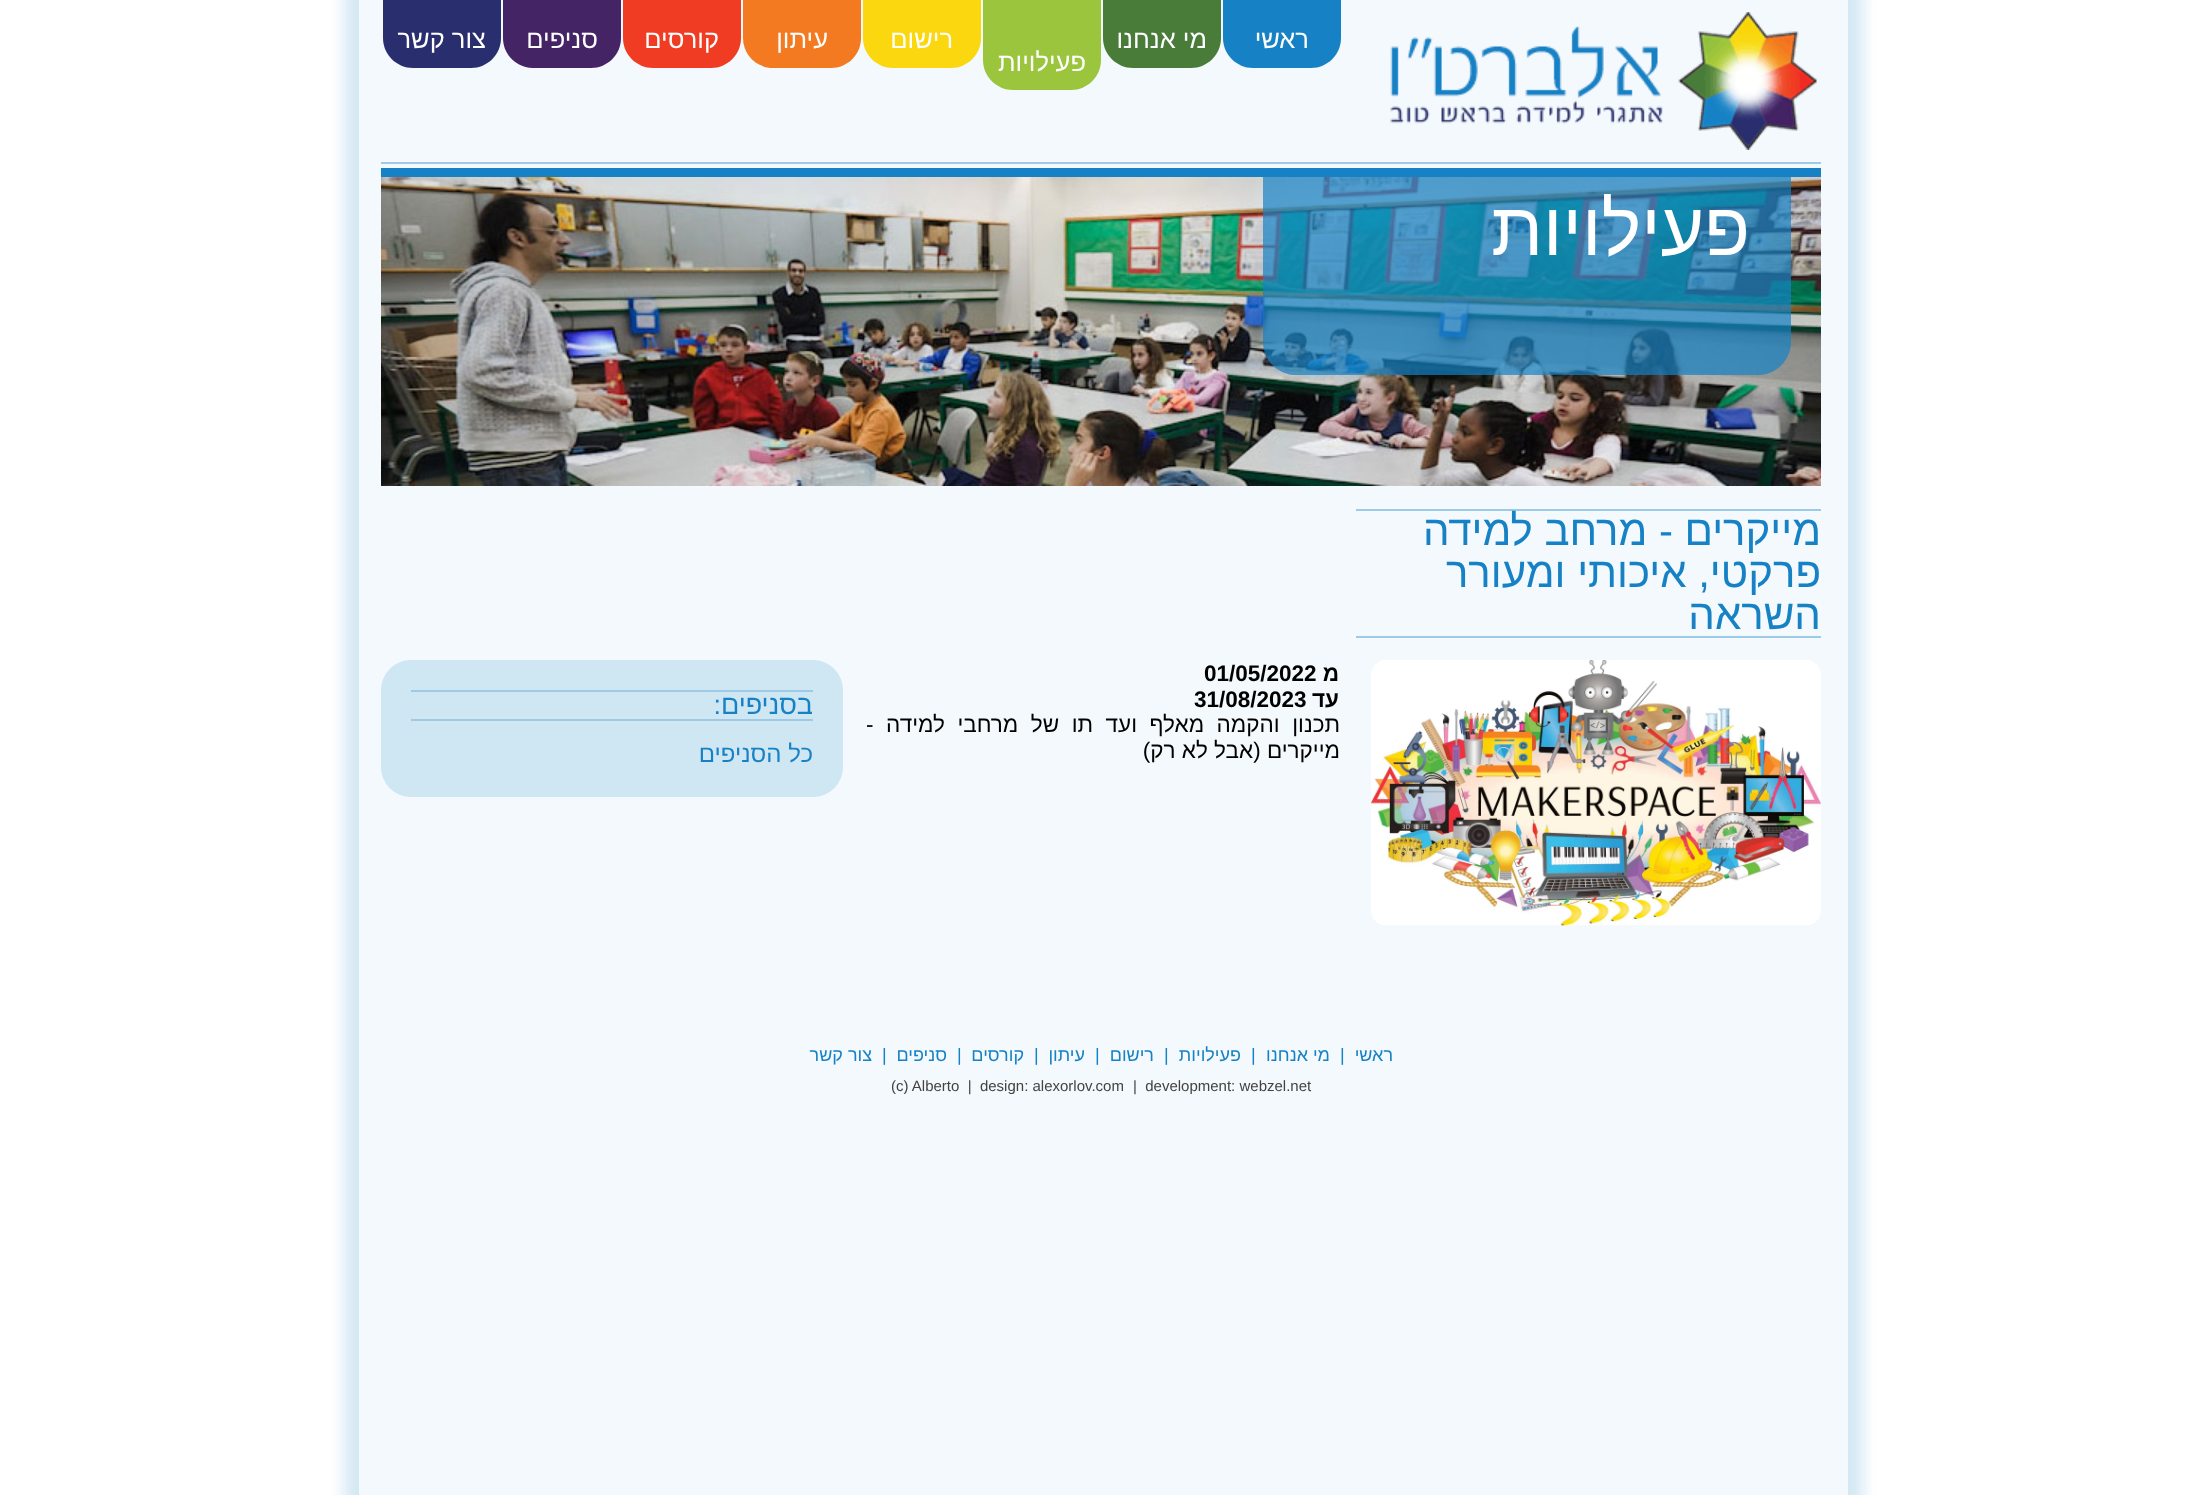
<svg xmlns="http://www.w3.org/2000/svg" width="2206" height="1495">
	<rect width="100%" height="100%" fill="#FFFFFF" />
	<rect x="344" y="-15" width="1519" height="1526" fill="#D4E8F4" filter="blur(7.5px)" />
	<rect x="359" y="0" width="1489" height="1495" fill="#F3F9FC" />
	<rect x="381" y="162" width="1440" height="2" fill="#9DCBE7" />
	<image x="1390" y="12" width="427" height="138" href="assets/img1.png" />
	<path d="M1223 0H1341V38C1341 54.5 1327.5 68 1311 68H1253C1236.5 68 1223 54.5 1223 38Z" fill="#1682C5" />
	<text x="1309" y="48" font-family="Liberation Sans" font-size="25.5" direction="rtl" fill="#FFFFFF">ראשי</text>
	<path d="M1103 0H1221V38C1221 54.5 1207.5 68 1191 68H1133C1116.5 68 1103 54.5 1103 38Z" fill="#497C39" />
	<text x="1207" y="48" font-family="Liberation Sans" font-size="25.5" direction="rtl" fill="#FFFFFF">מי אנחנו</text>
	<path d="M863 0H981V38C981 54.5 967.5 68 951 68H893C876.5 68 863 54.5 863 38Z" fill="#FAD70E" />
	<text x="953" y="48" font-family="Liberation Sans" font-size="25.5" direction="rtl" fill="#FFFFFF">רישום</text>
	<path d="M743 0H861V38C861 54.5 847.5 68 831 68H773C756.5 68 743 54.5 743 38Z" fill="#F37A21" />
	<text x="828" y="48" font-family="Liberation Sans" font-size="25.5" direction="rtl" fill="#FFFFFF">עיתון</text>
	<path d="M623 0H741V38C741 54.5 727.5 68 711 68H653C636.5 68 623 54.5 623 38Z" fill="#EF3C23" />
	<text x="719" y="48" font-family="Liberation Sans" font-size="25.5" direction="rtl" fill="#FFFFFF">קורסים</text>
	<path d="M503 0H621V38C621 54.5 607.5 68 591 68H533C516.5 68 503 54.5 503 38Z" fill="#452465" />
	<text x="598" y="48" font-family="Liberation Sans" font-size="25.5" direction="rtl" fill="#FFFFFF">סניפים</text>
	<path d="M383 0H501V38C501 54.5 487.5 68 471 68H413C396.5 68 383 54.5 383 38Z" fill="#292E6E" />
	<text x="486" y="48" font-family="Liberation Sans" font-size="25.5" direction="rtl" fill="#FFFFFF">צור קשר</text>
	<path d="M983 0H1101V60C1101 76.5 1087.5 90 1071 90H1013C996.5 90 983 76.5 983 60Z" fill="#9BC53C" />
	<text x="1086" y="71" font-family="Liberation Sans" font-size="25.5" direction="rtl" fill="#FFFFFF">פעילויות</text>
	<rect x="381" y="168" width="1440" height="9" fill="#1682C5" />
	<image x="381" y="177" width="1440" height="309" href="assets/img2.png" />
	<path d="M1263 177H1791V342C1791 360 1776 375 1758 375H1296C1278 375 1263 360 1263 342Z" fill="#1682C5" fill-opacity="0.7" />
	<text x="1750" y="255" font-family="Liberation Sans" font-size="75" direction="rtl" fill="#FFFFFF">פעילויות</text>
	<rect x="1356" y="509" width="465" height="2" fill="#9DCBE7" />
	<rect x="1356" y="636" width="465" height="2" fill="#9DCBE7" />
	<g font-family="Liberation Sans" font-size="42" direction="rtl" fill="#1682C5">
		<text x="1821" y="545">מייקרים - מרחב למידה</text>
		<text x="1821" y="587">פרקטי, איכותי ומעורר</text>
		<text x="1821" y="629">השראה</text>
	</g>
	<image x="1371" y="660" width="450" height="266" href="assets/img3.png" />
	<text x="1339" y="681" font-family="Liberation Sans" font-size="22.5" font-weight="700" direction="rtl" fill="#000000">מ</text>
	<text x="1204" y="681" font-family="Liberation Sans" font-size="22.5" font-weight="700" fill="#000000">01/05/2022</text>
	<text x="1339" y="707" font-family="Liberation Sans" font-size="22.5" font-weight="700" direction="rtl" fill="#000000">עד</text>
	<text x="1194" y="707" font-family="Liberation Sans" font-size="22.5" font-weight="700" fill="#000000">31/08/2023</text>
	<g font-family="Liberation Sans" font-size="22.5" direction="rtl" fill="#000000">
		<text x="1340" y="732" word-spacing="6.25">תכנון והקמה מאלף ועד תו של מרחבי למידה -</text>
		<text x="1340" y="758">מייקרים (אבל לא רק)</text>
	</g>
	<rect x="381" y="660" width="462" height="137" rx="30" fill="#CFE6F3" />
	<rect x="411" y="690" width="402" height="2" fill="#9DCBE7" />
	<rect x="411" y="719" width="402" height="2" fill="#9DCBE7" />
	<text x="813" y="714" font-family="Liberation Sans" font-size="27" direction="rtl" fill="#1682C5">בסניפים:</text>
	<text x="813" y="762" font-family="Liberation Sans" font-size="24" direction="rtl" fill="#1682C5">כל הסניפים</text>
	<text x="1393" y="1061" font-family="Liberation Sans" font-size="18" direction="rtl" fill="#1682C5">ראשי</text>
	<text x="1340" y="1061" font-family="Liberation Sans" font-size="18" fill="#1682C5">|</text>
	<text x="1330" y="1061" font-family="Liberation Sans" font-size="18" direction="rtl" fill="#1682C5">מי אנחנו</text>
	<text x="1251" y="1061" font-family="Liberation Sans" font-size="18" fill="#1682C5">|</text>
	<text x="1241" y="1061" font-family="Liberation Sans" font-size="18" direction="rtl" fill="#1682C5">פעילויות</text>
	<text x="1164" y="1061" font-family="Liberation Sans" font-size="18" fill="#1682C5">|</text>
	<text x="1154" y="1061" font-family="Liberation Sans" font-size="18" direction="rtl" fill="#1682C5">רישום</text>
	<text x="1095" y="1061" font-family="Liberation Sans" font-size="18" fill="#1682C5">|</text>
	<text x="1085" y="1061" font-family="Liberation Sans" font-size="18" direction="rtl" fill="#1682C5">עיתון</text>
	<text x="1034" y="1061" font-family="Liberation Sans" font-size="18" fill="#1682C5">|</text>
	<text x="1024" y="1061" font-family="Liberation Sans" font-size="18" direction="rtl" fill="#1682C5">קורסים</text>
	<text x="957" y="1061" font-family="Liberation Sans" font-size="18" fill="#1682C5">|</text>
	<text x="947" y="1061" font-family="Liberation Sans" font-size="18" direction="rtl" fill="#1682C5">סניפים</text>
	<text x="882" y="1061" font-family="Liberation Sans" font-size="18" fill="#1682C5">|</text>
	<text x="872" y="1061" font-family="Liberation Sans" font-size="18" direction="rtl" fill="#1682C5">צור קשר</text>
	<g font-family="Liberation Sans" font-size="15" fill="#434343">
		<text x="1133" y="1091" xml:space="preserve">|  development: webzel.net</text>
		<text x="891" y="1091" xml:space="preserve">(c) Alberto  |  design: alexorlov.com</text>
	</g>
</svg>
